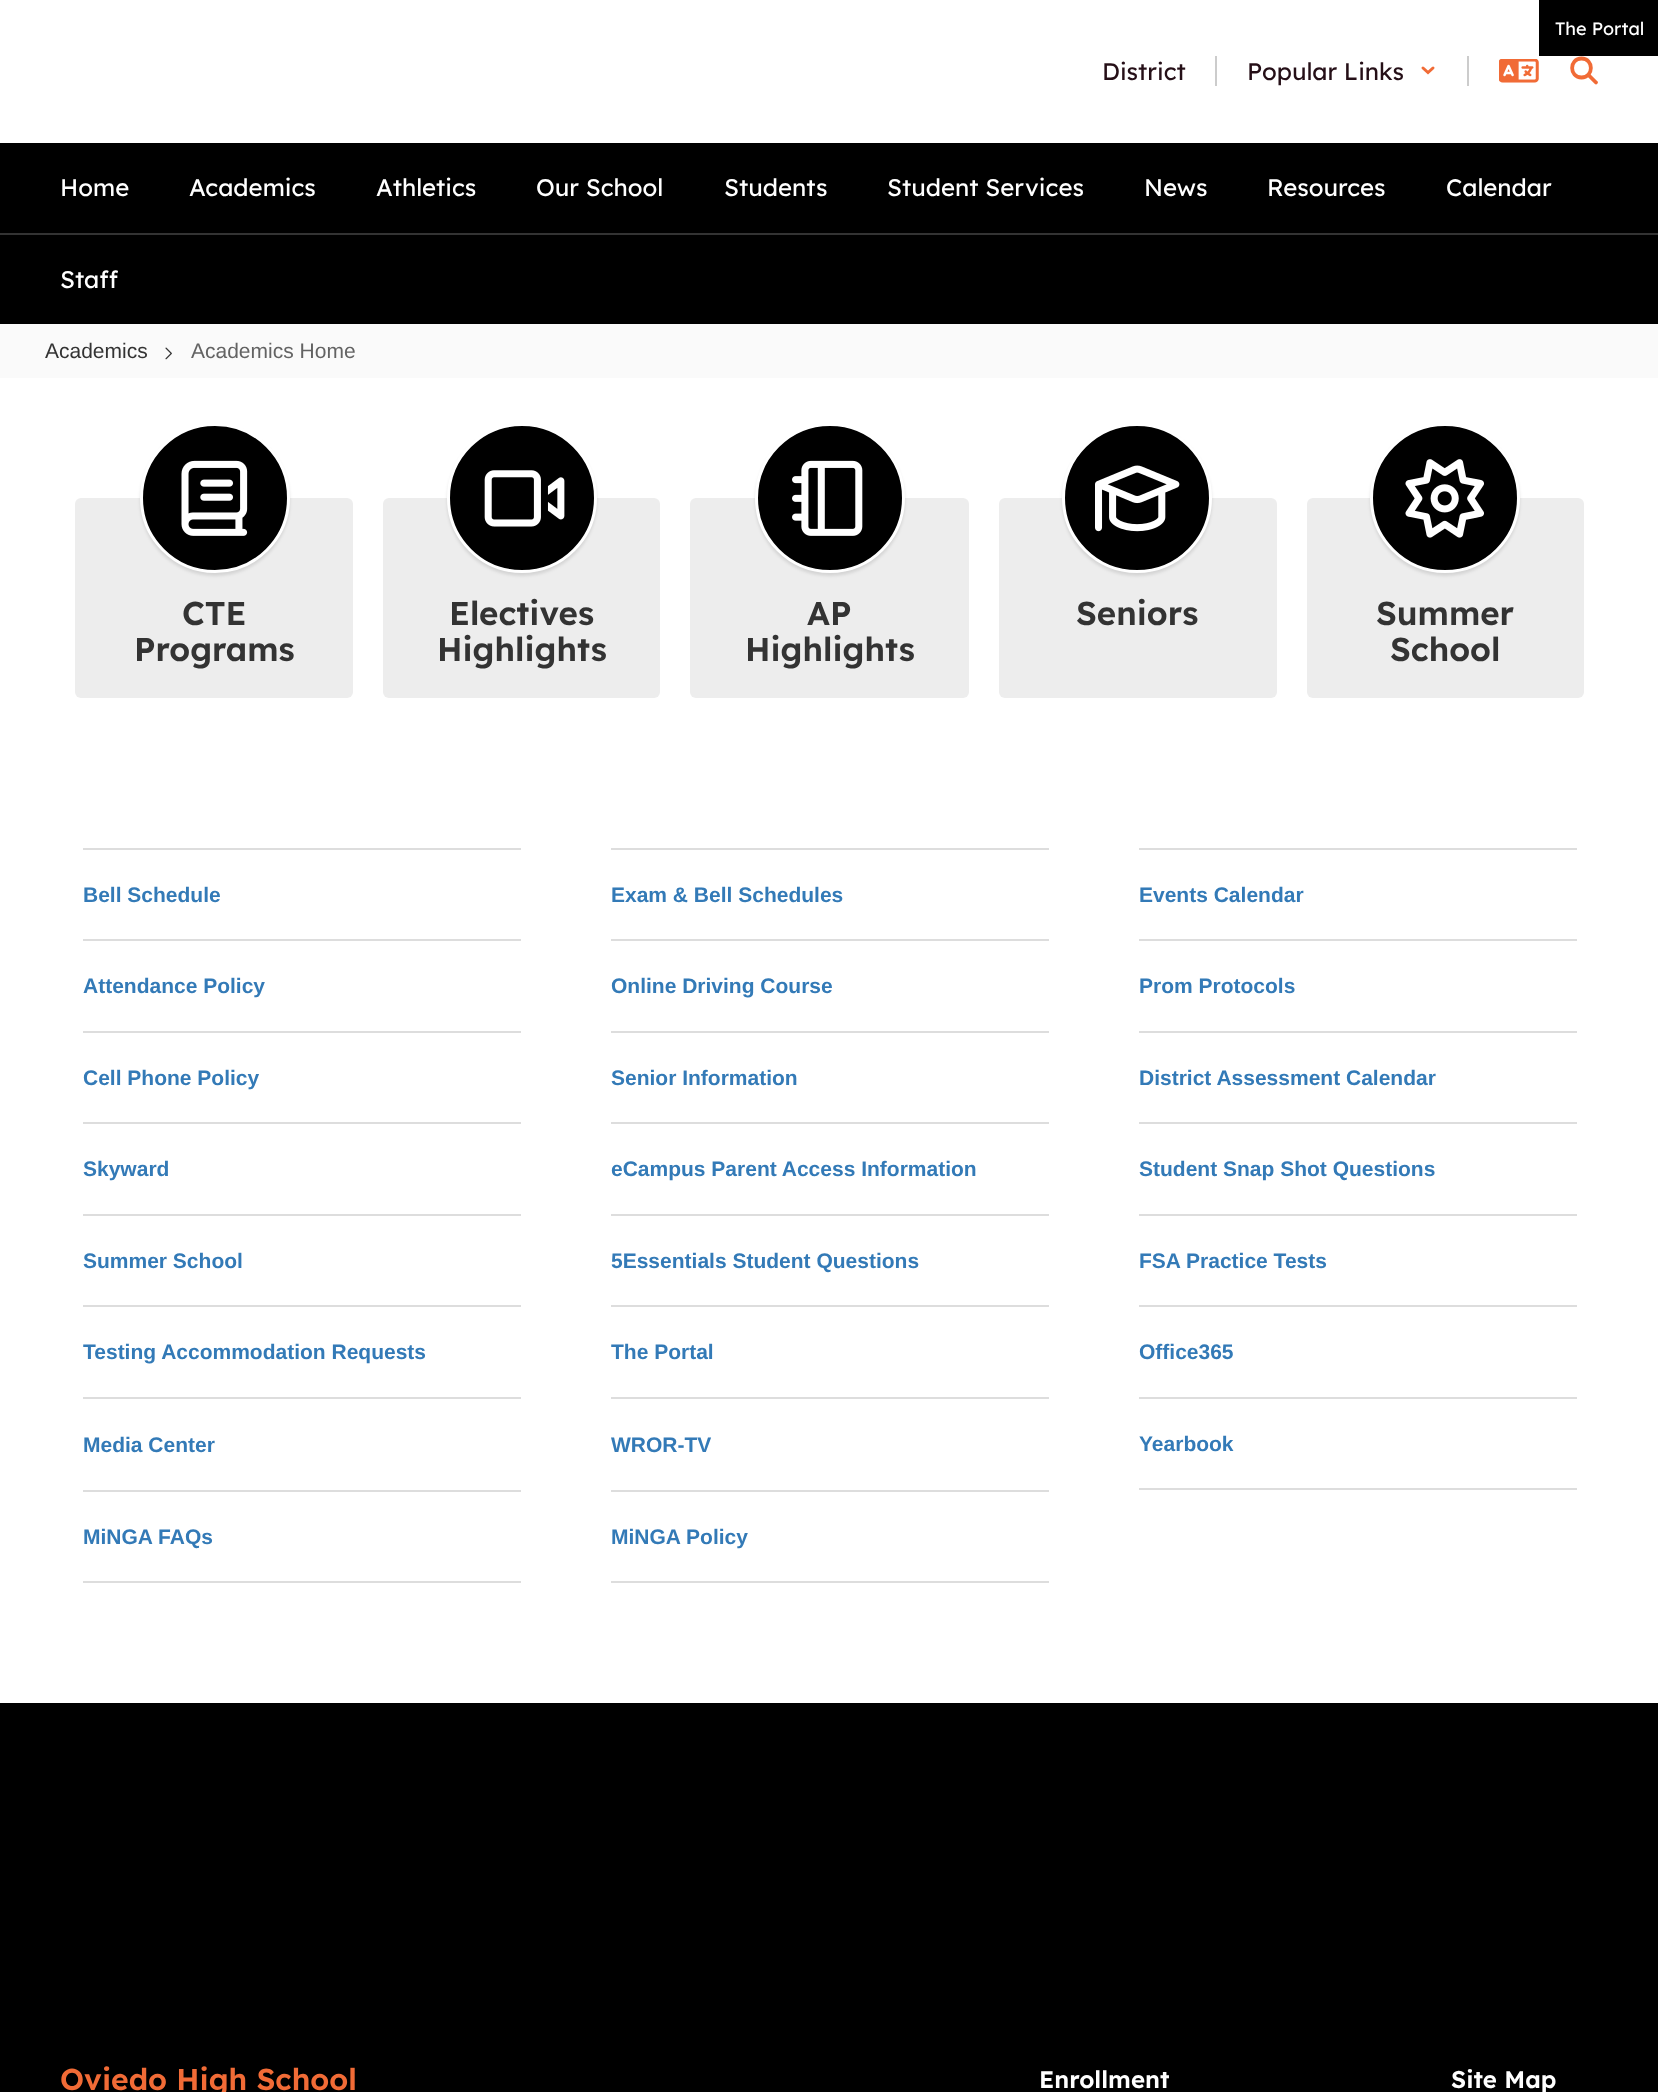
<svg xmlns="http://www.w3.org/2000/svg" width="1658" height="2092">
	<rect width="100%" height="100%" fill="#FFFFFF" />
	<rect x="1539" y="0" width="119" height="56" fill="#000000" />
	<text x="1555" y="35" font-family="Lexend" font-size="18" fill="#FFFFFF">The Portal</text>
	<rect x="1215" y="56" width="2" height="30" fill="#CCCCCC" />
	<text x="1102" y="80" font-family="Lexend" font-size="24" fill="#250F17">District</text>
	<rect x="1467" y="56" width="2" height="30" fill="#CCCCCC" />
	<text x="1247" y="80" font-family="Lexend" font-size="24" fill="#250F17">Popular Links</text>
	<path d="M1423 68L1428 72.5L1433 68" fill="none" stroke="#F16B36" stroke-width="3" stroke-linecap="round" />
	<image x="1499" y="59" width="40" height="24" href="assets/img1.png" />
	<path d="M1581.5 77.5C1594 77.5 1594 58.5 1581.5 58.5C1569 58.5 1569 77.5 1581.5 77.5Z" fill="none" stroke="#F16B36" stroke-width="3.8" stroke-linecap="square" stroke-linejoin="round" />
	<path d="M1596 82.5L1588.5 75" fill="none" stroke="#F16B36" stroke-width="3.8" stroke-linecap="round" stroke-linejoin="round" />
	<rect x="0" y="143" width="1658" height="181" fill="#000000" />
	<g font-family="Lexend" font-size="24" fill="#FFFFFF">
		<text x="60" y="196">Home</text>
		<text x="189" y="196">Academics</text>
		<text x="376" y="196">Athletics</text>
		<text x="536" y="196">Our School</text>
		<text x="724" y="196">Students</text>
		<text x="887" y="196">Student Services</text>
		<text x="1144" y="196">News</text>
		<text x="1267" y="196">Resources</text>
		<text x="1446" y="196">Calendar</text>
	</g>
	<rect x="0" y="233" width="1658" height="2" fill="#333333" />
	<text x="60" y="288" font-family="Lexend" font-size="24" fill="#FFFFFF">Staff</text>
	<rect x="0" y="324" width="1658" height="54" fill="#FAFAFA" />
	<text x="45" y="358" font-family="Liberation Sans" font-size="21" fill="#333333">Academics</text>
	<image x="165" y="347" width="7" height="13" href="assets/img2.png" />
	<text x="191" y="358" font-family="Liberation Sans" font-size="21" fill="#636363">Academics Home</text>
	<rect x="75" y="498" width="278" height="200" rx="6" fill="#EDEDED" />
	<rect x="140" y="426" width="150" height="150" rx="75" fill="#000000" fill-opacity="0.1" filter="blur(1.5px)" />
	<circle cx="215" cy="498" r="73.5" fill="#000000" stroke="#FFFFFF" stroke-width="3" />
	<image x="181" y="460" width="67" height="76" href="assets/img3.png" />
	<g font-family="Lexend" font-size="33" font-weight="600" fill="#333333">
		<text x="182" y="625">CTE</text>
		<text x="134" y="661">Programs</text>
	</g>
	<rect x="383" y="498" width="277" height="200" rx="6" fill="#EDEDED" />
	<rect x="447" y="426" width="150" height="150" rx="75" fill="#000000" fill-opacity="0.1" filter="blur(1.5px)" />
	<circle cx="522" cy="498" r="73.5" fill="#000000" stroke="#FFFFFF" stroke-width="3" />
	<image x="484" y="470" width="81" height="57" href="assets/img4.png" />
	<g font-family="Lexend" font-size="33" font-weight="600" fill="#333333">
		<text x="449" y="625">Electives</text>
		<text x="437" y="661">Highlights</text>
	</g>
	<rect x="690" y="498" width="279" height="200" rx="6" fill="#EDEDED" />
	<rect x="755" y="426" width="150" height="150" rx="75" fill="#000000" fill-opacity="0.1" filter="blur(1.5px)" />
	<circle cx="830" cy="498" r="73.5" fill="#000000" stroke="#FFFFFF" stroke-width="3" />
	<image x="792" y="460" width="71" height="76" href="assets/img5.png" />
	<g font-family="Lexend" font-size="33" font-weight="600" fill="#333333">
		<text x="807" y="625">AP</text>
		<text x="745" y="661">Highlights</text>
	</g>
	<rect x="999" y="498" width="278" height="200" rx="6" fill="#EDEDED" />
	<rect x="1062" y="426" width="150" height="150" rx="75" fill="#000000" fill-opacity="0.1" filter="blur(1.5px)" />
	<circle cx="1137" cy="498" r="73.5" fill="#000000" stroke="#FFFFFF" stroke-width="3" />
	<image x="1095" y="465" width="85" height="67" href="assets/img6.png" />
	<text x="1076" y="625" font-family="Lexend" font-size="33" font-weight="600" fill="#333333">Seniors</text>
	<rect x="1307" y="498" width="277" height="200" rx="6" fill="#EDEDED" />
	<rect x="1370" y="426" width="150" height="150" rx="75" fill="#000000" fill-opacity="0.1" filter="blur(1.5px)" />
	<circle cx="1445" cy="498" r="73.5" fill="#000000" stroke="#FFFFFF" stroke-width="3" />
	<image x="1405" y="459" width="79" height="79" href="assets/img7.png" />
	<g font-family="Lexend" font-size="33" font-weight="600" fill="#333333">
		<text x="1376" y="625">Summer</text>
		<text x="1390" y="661">School</text>
	</g>
	<rect x="83" y="848" width="438" height="2" fill="#DDDDDD" />
	<text x="83" y="902" font-family="Liberation Sans" font-size="21" font-weight="700" fill="#337AB7">Bell Schedule</text>
	<rect x="611" y="848" width="438" height="2" fill="#DDDDDD" />
	<text x="611" y="902" font-family="Liberation Sans" font-size="21" font-weight="700" fill="#337AB7">Exam &amp; Bell Schedules</text>
	<rect x="1139" y="848" width="438" height="2" fill="#DDDDDD" />
	<text x="1139" y="902" font-family="Liberation Sans" font-size="21" font-weight="700" fill="#337AB7">Events Calendar</text>
	<rect x="83" y="939" width="438" height="2" fill="#DDDDDD" />
	<text x="83" y="993" font-family="Liberation Sans" font-size="21" font-weight="700" fill="#337AB7">Attendance Policy</text>
	<rect x="611" y="939" width="438" height="2" fill="#DDDDDD" />
	<text x="611" y="993" font-family="Liberation Sans" font-size="21" font-weight="700" fill="#337AB7">Online Driving Course</text>
	<rect x="1139" y="939" width="438" height="2" fill="#DDDDDD" />
	<text x="1139" y="993" font-family="Liberation Sans" font-size="21" font-weight="700" fill="#337AB7">Prom Protocols</text>
	<rect x="83" y="1031" width="438" height="2" fill="#DDDDDD" />
	<text x="83" y="1085" font-family="Liberation Sans" font-size="21" font-weight="700" fill="#337AB7">Cell Phone Policy</text>
	<rect x="611" y="1031" width="438" height="2" fill="#DDDDDD" />
	<text x="611" y="1085" font-family="Liberation Sans" font-size="21" font-weight="700" fill="#337AB7">Senior Information</text>
	<rect x="1139" y="1031" width="438" height="2" fill="#DDDDDD" />
	<text x="1139" y="1085" font-family="Liberation Sans" font-size="21" font-weight="700" fill="#337AB7">District Assessment Calendar</text>
	<rect x="83" y="1122" width="438" height="2" fill="#DDDDDD" />
	<text x="83" y="1176" font-family="Liberation Sans" font-size="21" font-weight="700" fill="#337AB7">Skyward</text>
	<rect x="611" y="1122" width="438" height="2" fill="#DDDDDD" />
	<text x="611" y="1176" font-family="Liberation Sans" font-size="21" font-weight="700" fill="#337AB7">eCampus Parent Access Information</text>
	<rect x="1139" y="1122" width="438" height="2" fill="#DDDDDD" />
	<text x="1139" y="1176" font-family="Liberation Sans" font-size="21" font-weight="700" fill="#337AB7">Student Snap Shot Questions</text>
	<rect x="83" y="1214" width="438" height="2" fill="#DDDDDD" />
	<text x="83" y="1268" font-family="Liberation Sans" font-size="21" font-weight="700" fill="#337AB7">Summer School</text>
	<rect x="611" y="1214" width="438" height="2" fill="#DDDDDD" />
	<text x="611" y="1268" font-family="Liberation Sans" font-size="21" font-weight="700" fill="#337AB7">5Essentials Student Questions</text>
	<rect x="1139" y="1214" width="438" height="2" fill="#DDDDDD" />
	<text x="1139" y="1268" font-family="Liberation Sans" font-size="21" font-weight="700" fill="#337AB7">FSA Practice Tests</text>
	<rect x="83" y="1305" width="438" height="2" fill="#DDDDDD" />
	<text x="83" y="1359" font-family="Liberation Sans" font-size="21" font-weight="700" fill="#337AB7">Testing Accommodation Requests</text>
	<rect x="611" y="1305" width="438" height="2" fill="#DDDDDD" />
	<text x="611" y="1359" font-family="Liberation Sans" font-size="21" font-weight="700" fill="#337AB7">The Portal</text>
	<rect x="1139" y="1305" width="438" height="2" fill="#DDDDDD" />
	<text x="1139" y="1359" font-family="Liberation Sans" font-size="21" font-weight="700" fill="#337AB7">Office365</text>
	<rect x="83" y="1397" width="438" height="2" fill="#DDDDDD" />
	<text x="83" y="1452" font-family="Liberation Sans" font-size="21" font-weight="700" fill="#337AB7">Media Center</text>
	<rect x="611" y="1397" width="438" height="2" fill="#DDDDDD" />
	<text x="611" y="1452" font-family="Liberation Sans" font-size="21" font-weight="700" fill="#337AB7">WROR-TV</text>
	<rect x="1139" y="1397" width="438" height="2" fill="#DDDDDD" />
	<rect x="1139" y="1488" width="438" height="2" fill="#DDDDDD" />
	<text x="1139" y="1451" font-family="Liberation Sans" font-size="21" font-weight="700" fill="#337AB7">Yearbook</text>
	<rect x="83" y="1490" width="438" height="2" fill="#DDDDDD" />
	<rect x="83" y="1581" width="438" height="2" fill="#DDDDDD" />
	<text x="83" y="1544" font-family="Liberation Sans" font-size="21" font-weight="700" fill="#337AB7">MiNGA FAQs</text>
	<rect x="611" y="1490" width="438" height="2" fill="#DDDDDD" />
	<rect x="611" y="1581" width="438" height="2" fill="#DDDDDD" />
	<text x="611" y="1544" font-family="Liberation Sans" font-size="21" font-weight="700" fill="#337AB7">MiNGA Policy</text>
	<rect x="0" y="1703" width="1658" height="389" fill="#000000" />
	<text x="60" y="2090" font-family="Lexend" font-size="30" font-weight="600" fill="#F16B36">Oviedo High School</text>
	<g font-family="Lexend" font-size="24" font-weight="600" fill="#FFFFFF">
		<text x="1039" y="2088">Enrollment</text>
		<text x="1451" y="2088">Site Map</text>
	</g>
</svg>
